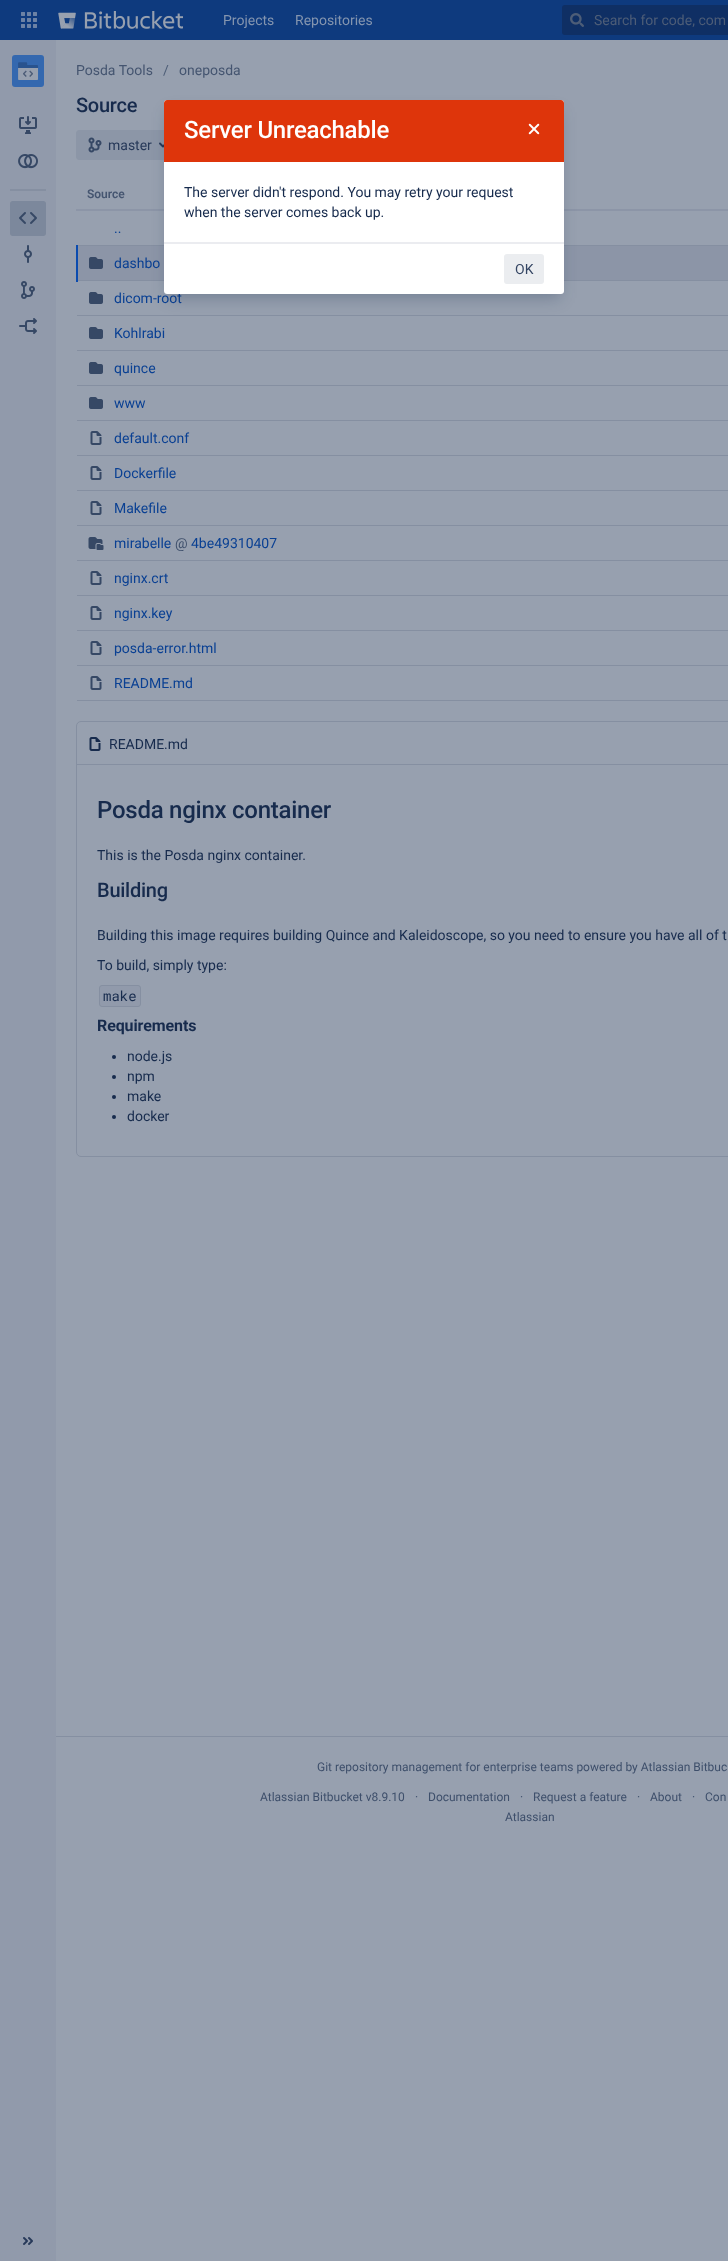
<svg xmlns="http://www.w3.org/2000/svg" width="728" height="2261">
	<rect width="100%" height="100%" fill="#97A0AF" />
	<rect x="0" y="0" width="728" height="40" fill="#0E3A7E" />
	<image x="21" y="12" width="16" height="16" href="assets/img1.png" />
	<image x="58" y="11" width="125" height="18" href="assets/img2.png" />
	<g font-family="Roboto" font-size="14" fill="#8495AF">
		<text x="223" y="25">Projects</text>
		<text x="295" y="25">Repositories</text>
	</g>
	<rect x="562" y="5" width="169" height="30" rx="3" fill="#0F2F64" />
	<image x="570" y="13" width="14" height="14" href="assets/img3.png" />
	<text x="594" y="25" font-family="Roboto" font-size="14" fill="#4D5D77">Search for code, com</text>
	<rect x="0" y="40" width="56" height="2221" fill="#919AAB" />
	<image x="12" y="55" width="32" height="32" href="assets/img4.png" />
	<image x="19" y="116" width="18" height="18" href="assets/img5.png" />
	<image x="18" y="154" width="20" height="15" href="assets/img6.png" />
	<rect x="10" y="189" width="36" height="2" fill="#858FA1" />
	<rect x="10" y="201" width="36" height="35" rx="3" fill="#8691A3" />
	<rect x="10" y="201" width="36" height="35" rx="3" fill="#0F2447" fill-opacity="0.08" />
	<image x="19" y="212" width="18" height="12" href="assets/img7.png" />
	<image x="24" y="245" width="8" height="18" href="assets/img8.png" />
	<image x="21" y="281" width="14" height="18" href="assets/img9.png" />
	<image x="19" y="318" width="18" height="16" href="assets/img10.png" />
	<image x="23" y="2237" width="10" height="8" href="assets/img11.png" />
	<rect x="56" y="1736" width="672" height="1" fill="#858FA1" />
	<text x="76" y="75" font-family="Roboto" font-size="14" fill="#455570">Posda Tools</text>
	<text x="163" y="75" font-family="Roboto" font-size="14" fill="#4D5D77">/</text>
	<text x="179" y="75" font-family="Roboto" font-size="14" fill="#455570">oneposda</text>
	<text x="76" y="112" font-family="Roboto" font-size="20" font-weight="500" letter-spacing="-0.25" fill="#172B4D">Source</text>
	<path d="M79 130H176V160H79C77.5 160 76 158.5 76 157V133C76 131.5 77.5 130 79 130Z" fill="#8C96A7" />
	<image x="88" y="137" width="14" height="16" href="assets/img12.png" />
	<text x="108" y="150" font-family="Roboto" font-size="14" fill="#273959">master</text>
	<image x="159" y="142" width="5" height="6" href="assets/img13.png" />
	<rect x="76" y="209" width="652" height="2" fill="#8C95A7" />
	<text x="87" y="198" font-family="Roboto" font-size="12" font-weight="600" fill="#455570">Source</text>
	<rect x="77" y="245" width="651" height="1" fill="#858FA1" />
	<text x="114" y="233" font-family="Roboto" font-size="14" fill="#0A4093">..</text>
	<rect x="78" y="246" width="650" height="34" fill="#8C95A7" />
	<rect x="77" y="280" width="651" height="1" fill="#858FA1" />
	<rect x="76" y="245" width="2" height="37" fill="#0A4BAF" />
	<image x="89" y="257" width="14" height="12" href="assets/img14.png" />
	<text x="114" y="268" font-family="Roboto" font-size="14" fill="#0A4093">dashbo</text>
	<rect x="77" y="315" width="651" height="1" fill="#858FA1" />
	<image x="89" y="292" width="14" height="12" href="assets/img15.png" />
	<text x="114" y="303" font-family="Roboto" font-size="14" fill="#0A4093">dicom-root</text>
	<rect x="77" y="350" width="651" height="1" fill="#858FA1" />
	<image x="89" y="327" width="14" height="12" href="assets/img15.png" />
	<text x="114" y="338" font-family="Roboto" font-size="14" fill="#0A4093">Kohlrabi</text>
	<rect x="77" y="385" width="651" height="1" fill="#858FA1" />
	<image x="89" y="362" width="14" height="12" href="assets/img15.png" />
	<text x="114" y="373" font-family="Roboto" font-size="14" fill="#0A4093">quince</text>
	<rect x="77" y="420" width="651" height="1" fill="#858FA1" />
	<image x="89" y="397" width="14" height="12" href="assets/img15.png" />
	<text x="114" y="408" font-family="Roboto" font-size="14" fill="#0A4093">www</text>
	<rect x="77" y="455" width="651" height="1" fill="#858FA1" />
	<image x="90" y="431" width="12" height="14" href="assets/img16.png" />
	<text x="114" y="443" font-family="Roboto" font-size="14" fill="#0A4093">default.conf</text>
	<rect x="77" y="490" width="651" height="1" fill="#858FA1" />
	<image x="90" y="466" width="12" height="14" href="assets/img16.png" />
	<text x="114" y="478" font-family="Roboto" font-size="14" fill="#0A4093">Dockerfile</text>
	<rect x="77" y="525" width="651" height="1" fill="#858FA1" />
	<image x="90" y="501" width="12" height="14" href="assets/img16.png" />
	<text x="114" y="513" font-family="Roboto" font-size="14" fill="#0A4093">Makefile</text>
	<rect x="77" y="560" width="651" height="1" fill="#858FA1" />
	<image x="88" y="537" width="16" height="13" href="assets/img17.png" />
	<text x="114" y="548" font-family="Roboto" font-size="14" fill="#0A4093">mirabelle</text>
	<text x="175" y="548" font-family="Roboto" font-size="14" fill="#3E4F6B">@</text>
	<text x="191" y="548" font-family="Roboto" font-size="14" fill="#0A4093">4be49310407</text>
	<rect x="77" y="595" width="651" height="1" fill="#858FA1" />
	<image x="90" y="571" width="12" height="14" href="assets/img16.png" />
	<text x="114" y="583" font-family="Roboto" font-size="14" fill="#0A4093">nginx.crt</text>
	<rect x="77" y="630" width="651" height="1" fill="#858FA1" />
	<image x="90" y="606" width="12" height="14" href="assets/img16.png" />
	<text x="114" y="618" font-family="Roboto" font-size="14" fill="#0A4093">nginx.key</text>
	<rect x="77" y="665" width="651" height="1" fill="#858FA1" />
	<image x="90" y="641" width="12" height="14" href="assets/img16.png" />
	<text x="114" y="653" font-family="Roboto" font-size="14" fill="#0A4093">posda-error.html</text>
	<rect x="77" y="700" width="651" height="1" fill="#858FA1" />
	<image x="90" y="676" width="12" height="14" href="assets/img16.png" />
	<text x="114" y="688" font-family="Roboto" font-size="14" fill="#0A4093">README.md</text>
	<rect x="76.5" y="721.5" width="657" height="435" rx="4.5" fill="none" stroke="#858FA1" />
	<rect x="77" y="764" width="651" height="1" fill="#858FA1" />
	<image x="89" y="737" width="12" height="14" href="assets/img18.png" />
	<text x="109" y="749" font-family="Roboto" font-size="14" fill="#172B4D">README.md</text>
	<text x="97" y="818" font-family="Roboto" font-size="24" font-weight="500" letter-spacing="-0.25" fill="#172B4D">Posda nginx container</text>
	<text x="97" y="860" font-family="Roboto" font-size="14" fill="#172B4D">This is the Posda nginx container.</text>
	<text x="97" y="897" font-family="Roboto" font-size="20" font-weight="500" letter-spacing="-0.25" fill="#172B4D">Building</text>
	<g font-family="Roboto" font-size="14" fill="#172B4D">
		<text x="97" y="940">Building this image requires building Quince and Kaleidoscope, so you need to ensure you have all of t</text>
		<text x="97" y="970">To build, simply type:</text>
	</g>
	<rect x="99.5" y="985.5" width="41" height="21" rx="2.5" fill="#919AAB" stroke="#858FA1" />
	<text x="103" y="1001" font-family="Roboto Mono" font-size="14" fill="#172B4D">make</text>
	<text x="97" y="1031" font-family="Roboto" font-size="16" font-weight="700" letter-spacing="-0.1" fill="#172B4D">Requirements</text>
	<circle cx="114" cy="1057" r="2" fill="#172B4D" />
	<text x="127" y="1061" font-family="Roboto" font-size="14" fill="#172B4D">node.js</text>
	<circle cx="114" cy="1077" r="2" fill="#172B4D" />
	<text x="127" y="1081" font-family="Roboto" font-size="14" fill="#172B4D">npm</text>
	<circle cx="114" cy="1097" r="2" fill="#172B4D" />
	<text x="127" y="1101" font-family="Roboto" font-size="14" fill="#172B4D">make</text>
	<circle cx="114" cy="1117" r="2" fill="#172B4D" />
	<text x="127" y="1121" font-family="Roboto" font-size="14" fill="#172B4D">docker</text>
	<g font-family="Roboto" font-size="12" fill="#3E4F6B">
		<text x="317" y="1771">Git repository management for enterprise teams powered by Atlassian Bitbuc</text>
		<text x="260" y="1801">Atlassian Bitbucket v8.9.10</text>
		<text x="415" y="1801">·</text>
		<text x="428" y="1801">Documentation</text>
		<text x="520" y="1801">·</text>
		<text x="533" y="1801">Request a feature</text>
		<text x="637" y="1801">·</text>
		<text x="650" y="1801">About</text>
		<text x="692" y="1801">·</text>
		<text x="705" y="1801">Con</text>
		<text x="505" y="1821">Atlassian</text>
	</g>
	<rect x="164" y="100" width="400" height="194" rx="3" fill="#091E42" fill-opacity="0.25" filter="blur(0.5px)" />
	<rect x="168" y="112" width="392" height="186" fill="#091E42" fill-opacity="0.25" filter="blur(8px)" />
	<rect x="164" y="100" width="400" height="194" rx="3" fill="#FFFFFF" />
	<path d="M167 100H561C562.5 100 564 101.5 564 103V162H164V103C164 101.5 165.5 100 167 100Z" fill="#DE350B" />
	<text x="184" y="138" font-family="Roboto" font-size="24" font-weight="500" letter-spacing="-0.25" fill="#FFFFFF">Server Unreachable</text>
	<image x="528" y="123" width="12" height="12" href="assets/img19.png" />
	<g font-family="Roboto" font-size="14" fill="#172B4D">
		<text x="184" y="197">The server didn't respond. You may retry your request</text>
		<text x="184" y="217">when the server comes back up.</text>
	</g>
	<rect x="164" y="242" width="400" height="2" fill="#EBECF0" />
	<rect x="504" y="254" width="40" height="30" rx="3" fill="#EBEDF0" />
	<text x="515" y="274" font-family="Roboto" font-size="14" fill="#344563">OK</text>
</svg>
